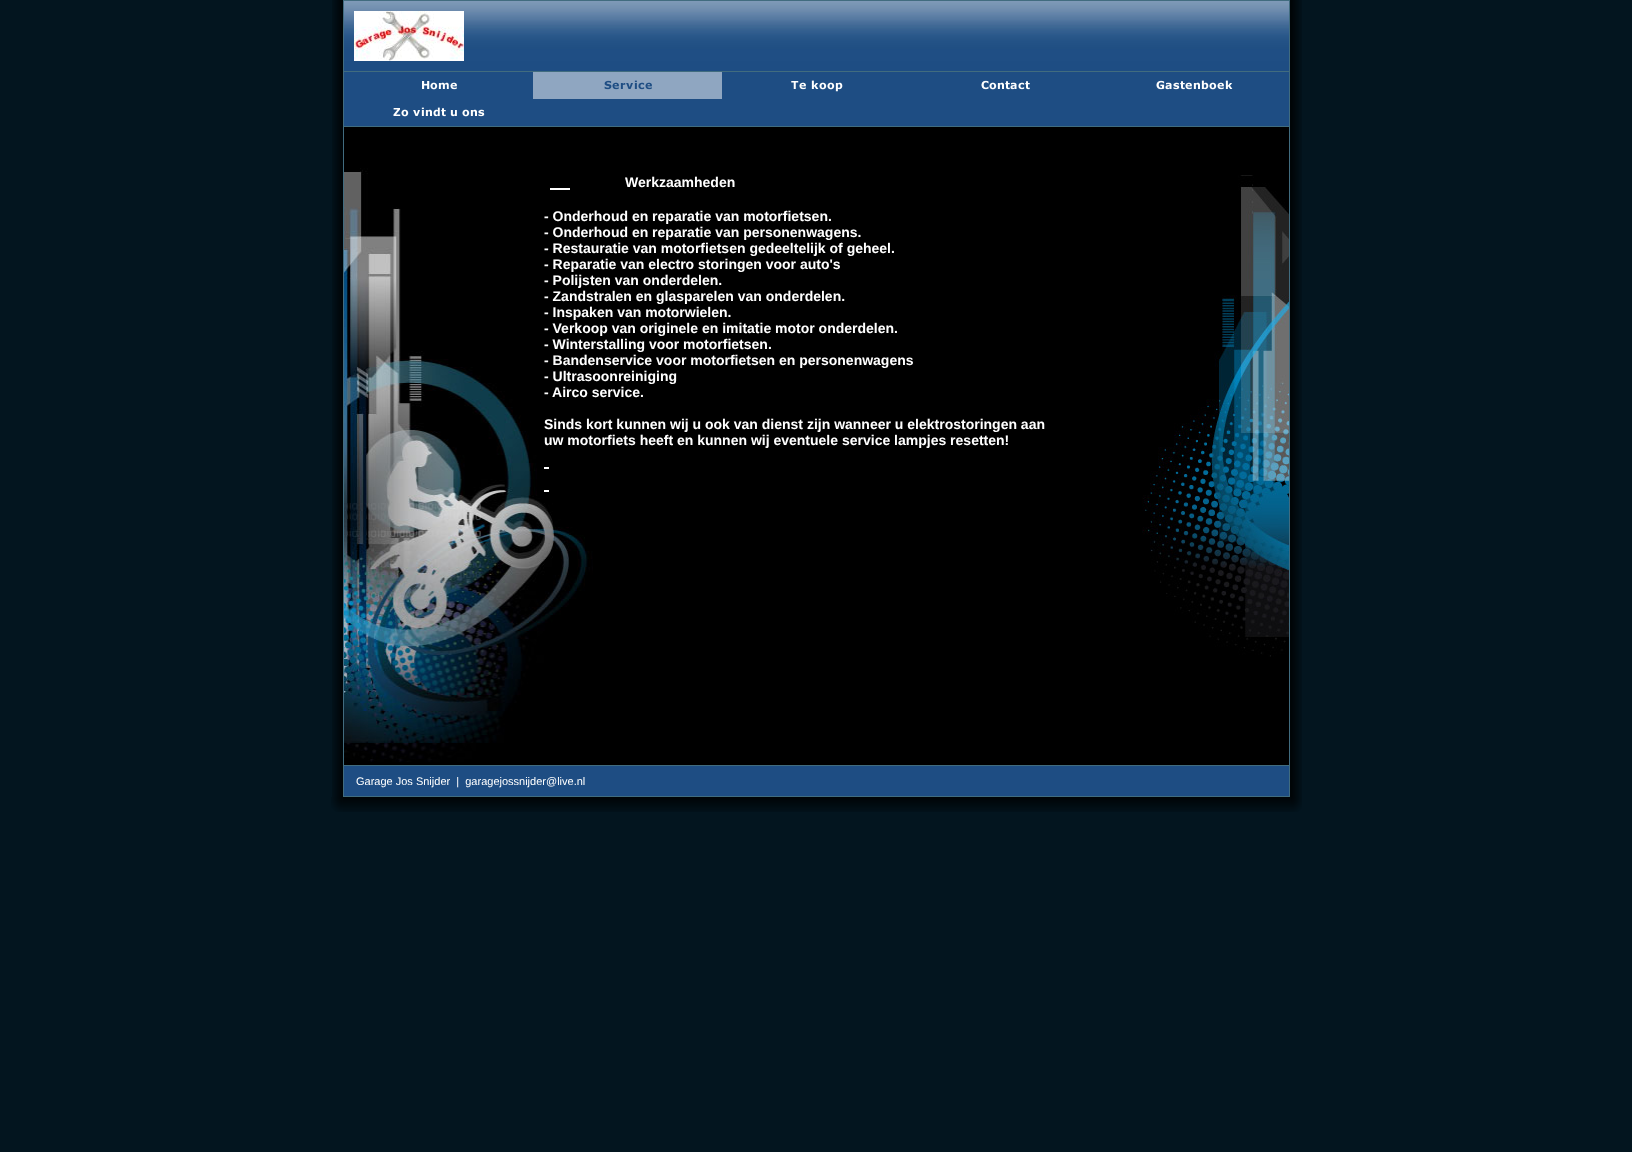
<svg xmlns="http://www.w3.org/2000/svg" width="1632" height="1152">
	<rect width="100%" height="100%" fill="#03151F" />
	<image x="332" y="0" width="11" height="797" href="assets/img1.png" />
	<image x="344" y="1" width="945" height="70" href="assets/img2.png" />
	<rect x="343" y="0" width="947" height="1" fill="#416C7F" />
	<rect x="1289" y="0" width="1" height="765" fill="#416C7F" />
	<rect x="343" y="0" width="1" height="765" fill="#416C7F" />
	<image x="354" y="11" width="110" height="50" href="assets/img3.png" />
	<rect x="344" y="72" width="945" height="54" fill="#1E4D83" />
	<rect x="344" y="71" width="945" height="1" fill="#416C7F" />
	<rect x="344" y="126" width="945" height="1" fill="#416C7F" />
	<image x="422" y="81" width="35" height="9" href="assets/img4.png" />
	<image x="533" y="72" width="189" height="27" href="assets/img5.png" />
	<image x="791" y="80" width="52" height="12" href="assets/img6.png" />
	<image x="981" y="80" width="49" height="10" href="assets/img7.png" />
	<image x="1156" y="80" width="77" height="10" href="assets/img8.png" />
	<image x="393" y="107" width="92" height="10" href="assets/img9.png" />
	<rect x="344" y="127" width="945" height="638" fill="#000000" />
	<image x="344" y="168" width="249" height="594" href="assets/img10.png" />
	<image x="1142" y="175" width="147" height="482" href="assets/img11.png" />
	<text x="625" y="187" font-family="Liberation Sans" font-size="14" font-weight="700" fill="#FFFFFF">Werkzaamheden</text>
	<rect x="550" y="188" width="20" height="2" fill="#FFFFFF" />
	<g font-family="Liberation Sans" font-size="14" font-weight="700" fill="#FFFFFF">
		<text x="544" y="221">- Onderhoud en reparatie van motorfietsen.</text>
		<text x="544" y="237">- Onderhoud en reparatie van personenwagens.</text>
		<text x="544" y="253">- Restauratie van motorfietsen gedeeltelijk of geheel.</text>
		<text x="544" y="269">- Reparatie van electro storingen voor auto's</text>
		<text x="544" y="285">- Polijsten van onderdelen.</text>
		<text x="544" y="301">- Zandstralen en glasparelen van onderdelen.</text>
		<text x="544" y="317">- Inspaken van motorwielen.</text>
		<text x="544" y="333">- Verkoop van originele en imitatie motor onderdelen.</text>
		<text x="544" y="349">- Winterstalling voor motorfietsen.</text>
		<text x="544" y="365">- Bandenservice voor motorfietsen en personenwagens</text>
		<text x="544" y="381">- Ultrasoonreiniging</text>
		<text x="544" y="397">- Airco service.</text>
		<text x="544" y="429">Sinds kort kunnen wij u ook van dienst zijn wanneer u elektrostoringen aan</text>
		<text x="544" y="445">uw motorfiets heeft en kunnen wij eventuele service lampjes resetten!</text>
	</g>
	<rect x="544" y="467" width="5" height="2" fill="#FFFFFF" />
	<rect x="544" y="490" width="5" height="2" fill="#FFFFFF" />
	<image x="1290" y="0" width="12" height="797" href="assets/img12.png" />
	<rect x="343.5" y="765.5" width="946" height="31" fill="#1E4D83" stroke="#416C7F" />
	<text x="356" y="785" font-family="Liberation Sans" font-size="11" fill="#FFFFFF" xml:space="preserve">Garage Jos Snijder  |  garagejossnijder@live.nl</text>
	<image x="331" y="797" width="12" height="15" href="assets/img13.png" />
	<image x="343" y="797" width="947" height="15" href="assets/img14.png" />
	<image x="1290" y="797" width="12" height="15" href="assets/img15.png" />
</svg>
